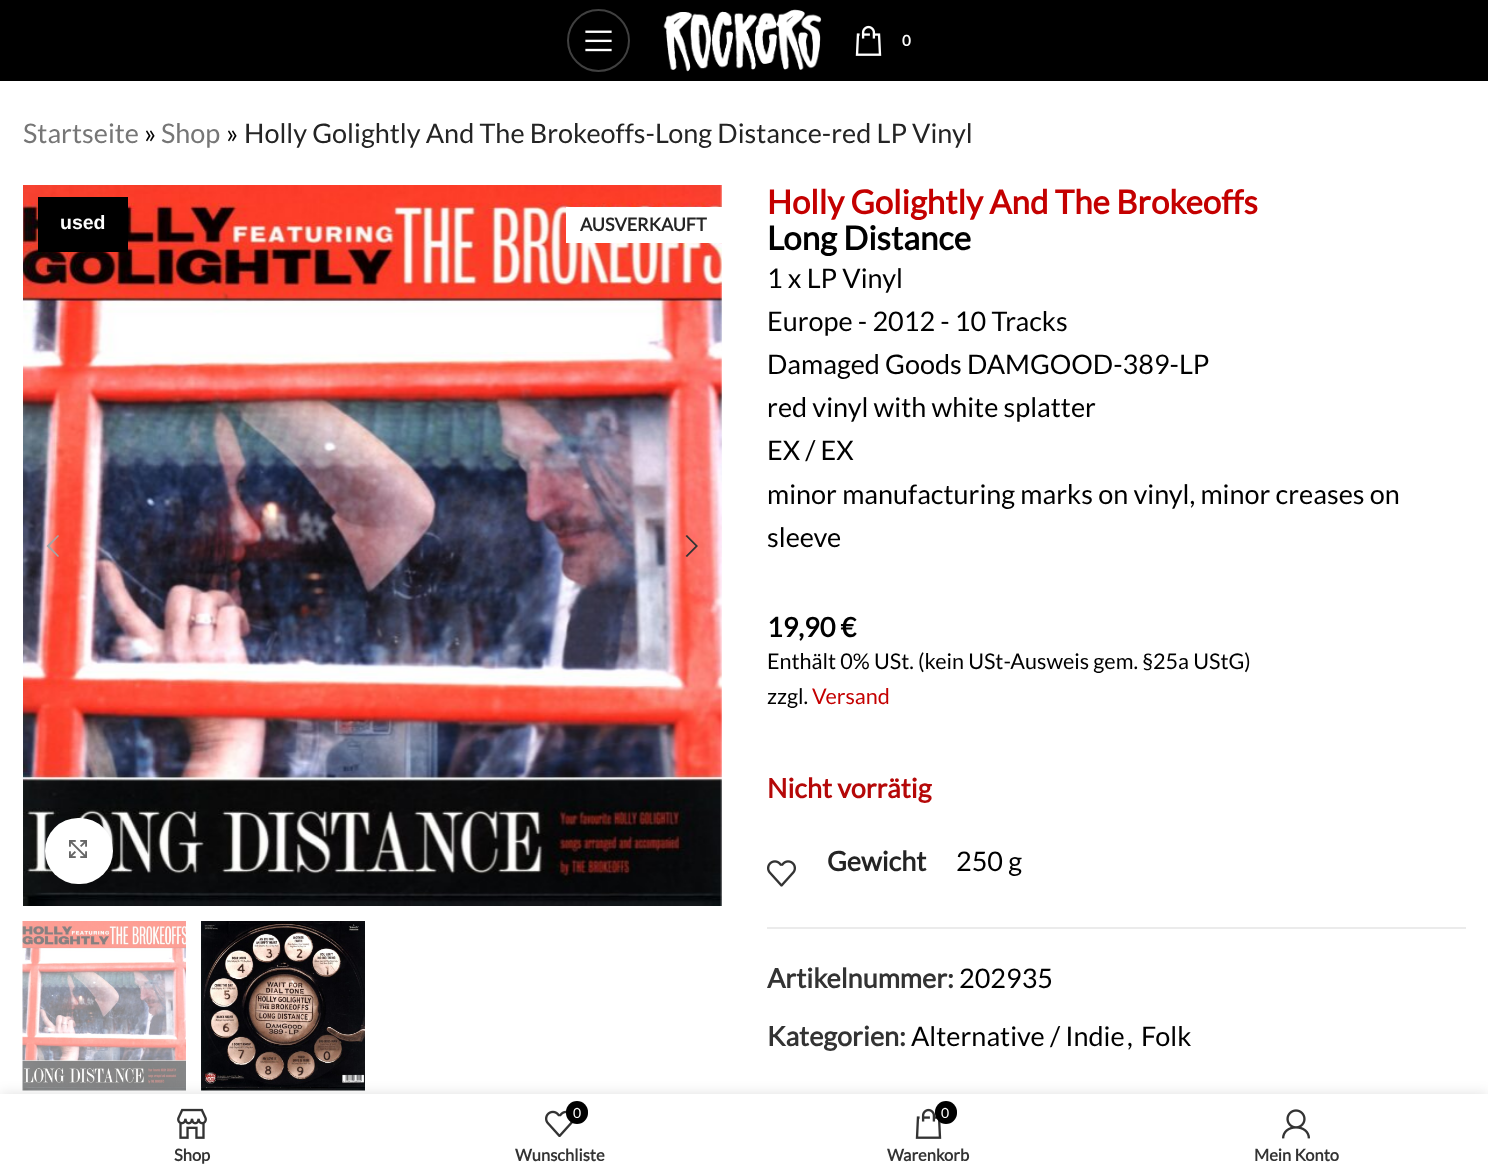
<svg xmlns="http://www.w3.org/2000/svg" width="1488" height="1175">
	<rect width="100%" height="100%" fill="#FFFFFF" />
	<rect x="0" y="0" width="1488" height="81" fill="#000000" />
	<circle cx="598.5" cy="40.5" r="30.5" fill="none" stroke="#404040" stroke-width="2" />
	<image x="585" y="30" width="27" height="22" href="assets/img1.png" />
	<image x="663" y="9" width="159" height="63" href="assets/img2.png" />
	<image x="855" y="25" width="27" height="31" href="assets/img3.png" />
	<text x="902" y="46" font-family="Lato" font-size="15" font-weight="700" fill="#FFFFFF">0</text>
	<text x="23" y="143" font-family="Lato" font-size="27" fill="#767676">Startseite</text>
	<text x="144" y="143" font-family="Lato" font-size="27" fill="#000000">»</text>
	<text x="161" y="143" font-family="Lato" font-size="27" fill="#767676">Shop</text>
	<text x="226" y="143" font-family="Lato" font-size="27" fill="#000000">»</text>
	<text x="244" y="143" font-family="Lato" font-size="27" fill="#242424">Holly Golightly And The Brokeoffs-Long Distance-red LP Vinyl</text>
	<image x="23" y="185" width="699" height="721" href="assets/img4.png" />
	<rect x="38" y="197" width="90" height="55" fill="#000000" />
	<text x="60" y="229" font-family="Liberation Sans" font-size="19.5" font-weight="700" fill="#FFFFFF">used</text>
	<rect x="566" y="207" width="156" height="36" fill="#FFFFFF" />
	<text x="580" y="231" font-family="Lato" font-size="18" font-weight="700" fill="#242424">AUSVERKAUFT</text>
	<path d="M59 536L58 535L46.5 546L58 557L59 556L49.5 546Z" fill="#A5A5A5" />
	<path d="M685.5 536L695.5 546L685.5 556L687 557L698 546L687 535Z" fill="#333333" />
	<rect x="45" y="818" width="68" height="66" rx="33" fill="#000000" fill-opacity="0.08" filter="blur(4px)" />
	<rect x="45" y="818" width="68" height="66" rx="33" fill="#FFFFFF" />
	<image x="69" y="840" width="18" height="18" href="assets/img5.png" />
	<image x="22" y="921" width="164" height="170" href="assets/img6.png" />
	<image x="201" y="921" width="164" height="170" href="assets/img7.png" />
	<text x="767" y="214" font-family="Lato" font-size="33" font-weight="700" fill="#C40000">Holly Golightly And The Brokeoffs</text>
	<text x="767" y="250" font-family="Lato" font-size="33" font-weight="700" fill="#000000">Long Distance</text>
	<g font-family="Lato" font-size="27" fill="#000000">
		<text x="767" y="288">1 x LP Vinyl</text>
		<text x="767" y="331">Europe - 2012 - 10 Tracks</text>
		<text x="767" y="374">Damaged Goods DAMGOOD-389-LP</text>
		<text x="767" y="417">red vinyl with white splatter</text>
		<text x="767" y="460">EX / EX</text>
		<text x="767" y="504">minor manufacturing marks on vinyl, minor creases on</text>
		<text x="767" y="547">sleeve</text>
	</g>
	<text x="767" y="637" font-family="Lato" font-size="27" font-weight="700" fill="#000000">19,90 €</text>
	<g font-family="Lato" font-size="21.6" fill="#000000">
		<text x="767" y="669">Enthält 0% USt. (kein USt-Ausweis gem. §25a UStG)</text>
		<text x="767" y="704">zzgl.</text>
	</g>
	<text x="812" y="704" font-family="Lato" font-size="21.6" fill="#C40000">Versand</text>
	<text x="767" y="798" font-family="Lato" font-size="27" font-weight="700" fill="#B50808">Nicht vorrätig</text>
	<image x="767" y="860" width="29" height="27" href="assets/img8.png" />
	<text x="827" y="871" font-family="Lato" font-size="27" font-weight="700" fill="#242424">Gewicht</text>
	<text x="956" y="871" font-family="Lato" font-size="27" fill="#000000">250 g</text>
	<rect x="767" y="927" width="699" height="2" fill="#EBEBEB" />
	<text x="767" y="988" font-family="Lato" font-size="27" font-weight="700" fill="#333333">Artikelnummer:</text>
	<text x="959" y="988" font-family="Lato" font-size="27" fill="#000000">202935</text>
	<text x="767" y="1046" font-family="Lato" font-size="27" font-weight="700" fill="#333333">Kategorien:</text>
	<g font-family="Lato" font-size="27" fill="#000000">
		<text x="911" y="1046">Alternative / Indie</text>
		<text x="1127" y="1046">,</text>
		<text x="1141" y="1046">Folk</text>
	</g>
	<rect x="0" y="1094" width="1488" height="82" fill="#000000" fill-opacity="0.12" filter="blur(7px)" />
	<rect x="0" y="1094" width="1488" height="81" fill="#FFFFFF" />
	<image x="177" y="1108" width="30" height="31" href="assets/img9.png" />
	<text x="174" y="1161" font-family="Lato" font-size="16.5" font-weight="700" fill="#333333">Shop</text>
	<image x="545" y="1110" width="28" height="27" href="assets/img10.png" />
	<rect x="566" y="1101" width="22" height="23" rx="11" fill="#000000" />
	<text x="573" y="1118" font-family="Lato" font-size="14" fill="#FFFFFF">0</text>
	<text x="515" y="1161" font-family="Lato" font-size="16.5" font-weight="700" fill="#333333">Wunschliste</text>
	<image x="915" y="1108" width="27" height="31" href="assets/img11.png" />
	<rect x="935" y="1101" width="22" height="23" rx="11" fill="#000000" />
	<text x="941" y="1118" font-family="Lato" font-size="14" fill="#FFFFFF">0</text>
	<text x="887" y="1161" font-family="Lato" font-size="16.5" font-weight="700" fill="#333333">Warenkorb</text>
	<image x="1282" y="1109" width="28" height="30" href="assets/img12.png" />
	<text x="1254" y="1161" font-family="Lato" font-size="16.5" font-weight="700" fill="#333333">Mein Konto</text>
</svg>
